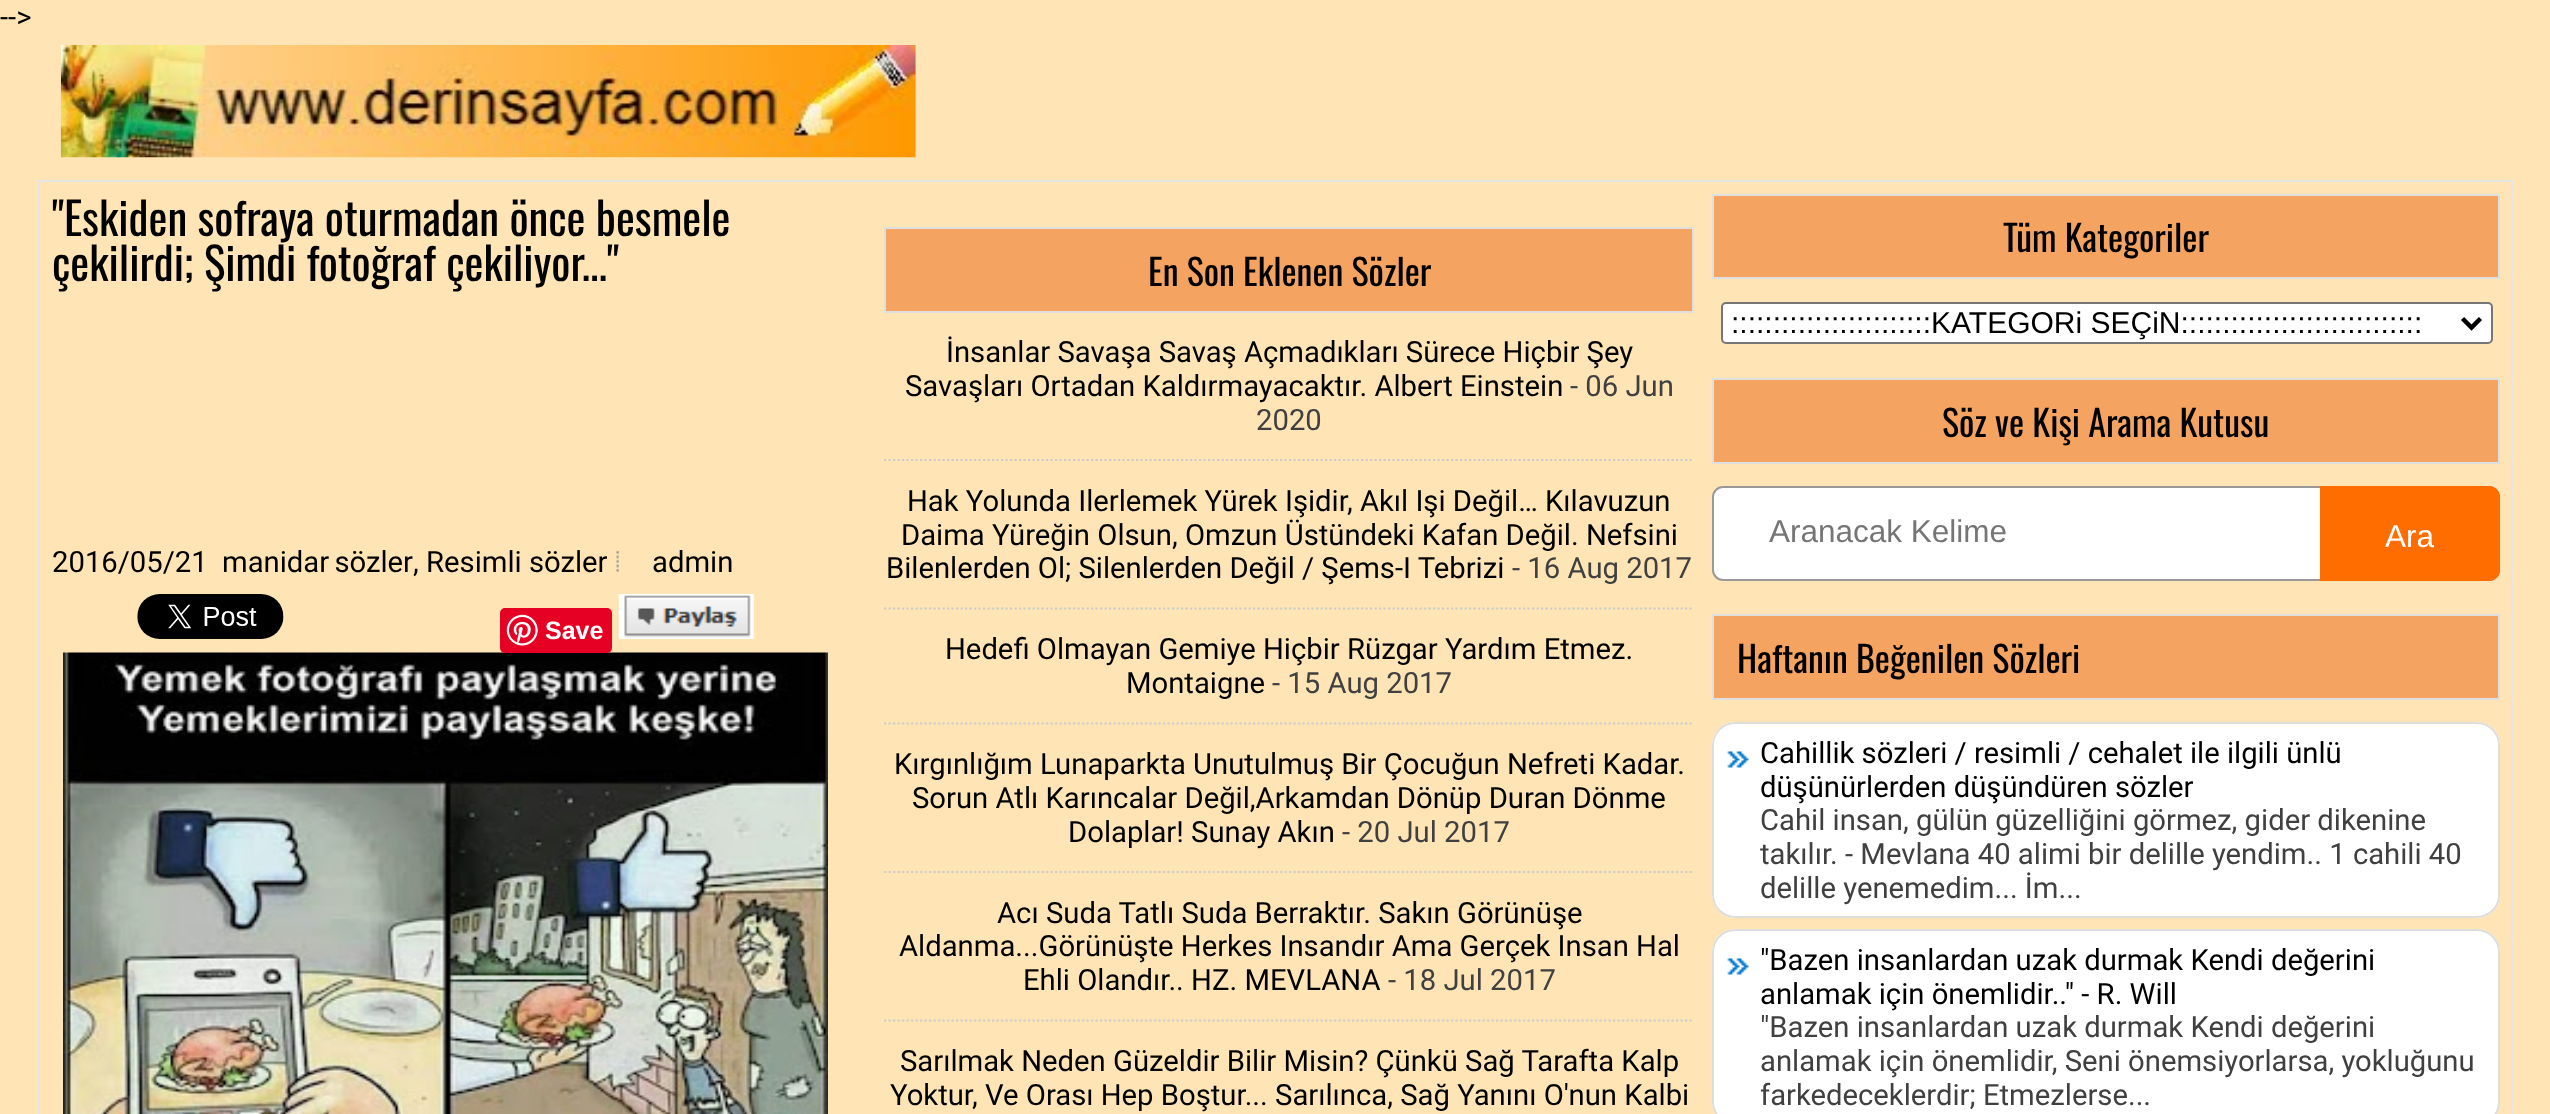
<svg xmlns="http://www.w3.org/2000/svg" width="2550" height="1114">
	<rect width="100%" height="100%" fill="#FFE4B5" />
	<text x="0" y="27" font-family="Roboto" font-size="29.25" fill="#000000">--&gt;</text>
	<image x="60" y="45" width="856" height="113" href="assets/img1.png" />
	<rect x="39" y="181" width="2473" height="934" fill="none" stroke="#E5E5E5" stroke-width="2" />
	<g font-family="Oswald" font-size="45" fill="#000000">
		<text x="52" y="236">"Eskiden sofraya oturmadan önce besmele</text>
		<text x="52" y="281">çekilirdi; Şimdi fotoğraf çekiliyor..."</text>
	</g>
	<g font-family="Roboto" font-size="29.25" fill="#000000">
		<text x="52" y="572">2016/05/21</text>
		<text x="222" y="572" word-spacing="-2">manidar sözler</text>
		<text x="413" y="572">, Resimli sözler</text>
	</g>
	<image x="616" y="551" width="3" height="21" href="assets/img2.png" />
	<text x="652" y="572" font-family="Roboto" font-size="29.25" fill="#000000">admin</text>
	<image x="137" y="594" width="147" height="45" href="assets/img3.png" />
	<image x="63" y="652" width="765" height="462" href="assets/img6.png" />
	<rect x="500" y="608" width="112" height="45" rx="5" fill="#E60023" />
	<image x="506" y="614" width="32" height="32" href="assets/img4.png" />
	<text x="545" y="639" font-family="Liberation Sans" font-size="25" font-weight="700" fill="#FFFFFF">Save</text>
	<image x="618" y="594" width="136" height="45" href="assets/img5.png" />
	<rect x="885" y="228" width="808" height="84" fill="#F4A460" stroke="#DFDFDF" stroke-width="2" />
	<text x="1148" y="286" font-family="Oswald" font-size="36" fill="#000000">En Son Eklenen Sözler</text>
	<path d="M884 460H1694" fill="none" stroke="#CCCCCC" stroke-width="2.2" stroke-dasharray="2.25 2.25" />
	<g font-family="Roboto" font-size="29.25" fill="#000000">
		<text x="946" y="362">İnsanlar Savaşa Savaş Açmadıkları Sürece Hiçbir Şey</text>
		<text x="905" y="396">Savaşları Ortadan Kaldırmayacaktır. Albert Einstein</text>
	</g>
	<g font-family="Roboto" font-size="29.25" fill="#404040">
		<text x="1570" y="396">- 06 Jun</text>
		<text x="1256" y="430">2020</text>
	</g>
	<path d="M884 608.5H1694" fill="none" stroke="#CCCCCC" stroke-width="2.2" stroke-dasharray="2.25 2.25" />
	<g font-family="Roboto" font-size="29.25" fill="#000000">
		<text x="907" y="511">Hak Yolunda Ilerlemek Yürek Işidir, Akıl Işi Değil… Kılavuzun</text>
		<text x="901" y="545">Daima Yüreğin Olsun, Omzun Üstündeki Kafan Değil. Nefsini</text>
		<text x="886" y="578">Bilenlerden Ol; Silenlerden Değil / Şems-I Tebrizi</text>
	</g>
	<text x="1512" y="578" font-family="Roboto" font-size="29.25" fill="#404040">- 16 Aug 2017</text>
	<path d="M884 723.5H1694" fill="none" stroke="#CCCCCC" stroke-width="2.2" stroke-dasharray="2.25 2.25" />
	<g font-family="Roboto" font-size="29.25" fill="#000000">
		<text x="945" y="659">Hedefi Olmayan Gemiye Hiçbir Rüzgar Yardım Etmez.</text>
		<text x="1126" y="693">Montaigne</text>
	</g>
	<text x="1272" y="693" font-family="Roboto" font-size="29.25" fill="#404040">- 15 Aug 2017</text>
	<path d="M884 872H1694" fill="none" stroke="#CCCCCC" stroke-width="2.2" stroke-dasharray="2.25 2.25" />
	<g font-family="Roboto" font-size="29.25" fill="#000000">
		<text x="894" y="774">Kırgınlığım Lunaparkta Unutulmuş Bir Çocuğun Nefreti Kadar.</text>
		<text x="912" y="808">Sorun Atlı Karıncalar Değil,Arkamdan Dönüp Duran Dönme</text>
		<text x="1068" y="842">Dolaplar! Sunay Akın</text>
	</g>
	<text x="1342" y="842" font-family="Roboto" font-size="29.25" fill="#404040">- 20 Jul 2017</text>
	<path d="M884 1020.5H1694" fill="none" stroke="#CCCCCC" stroke-width="2.2" stroke-dasharray="2.25 2.25" />
	<g font-family="Roboto" font-size="29.25" fill="#000000">
		<text x="997" y="923">Acı Suda Tatlı Suda Berraktır. Sakın Görünüşe</text>
		<text x="899" y="956">Aldanma...Görünüşte Herkes Insandır Ama Gerçek Insan Hal</text>
		<text x="1023" y="990">Ehli Olandır.. HZ. MEVLANA</text>
	</g>
	<text x="1388" y="990" font-family="Roboto" font-size="29.25" fill="#404040">- 18 Jul 2017</text>
	<g font-family="Roboto" font-size="29.25" fill="#000000">
		<text x="900" y="1071">Sarılmak Neden Güzeldir Bilir Misin? Çünkü Sağ Tarafta Kalp</text>
		<text x="890" y="1105">Yoktur, Ve Orası Hep Boştur... Sarılınca, Sağ Yanını O'nun Kalbi</text>
	</g>
	<rect x="1713" y="195" width="786" height="83" fill="#F4A460" stroke="#DFDFDF" stroke-width="2" />
	<text x="2003" y="252" font-family="Oswald" font-size="36" fill="#000000">Tüm Kategoriler</text>
	<rect x="1722" y="303" width="770" height="40" rx="4" fill="#FFFFFF" stroke="#767676" stroke-width="2" />
	<path d="M2462.5 318.5L2471.5 327.5L2480.5 318.5" fill="none" stroke="#000000" stroke-width="4.5" />
	<text x="1731" y="333" font-family="Liberation Sans" font-size="30" fill="#000000">::::::::::::::::::::::::KATEGORi SEÇiN:::::::::::::::::::::::::::::</text>
	<rect x="1713" y="379" width="786" height="84" fill="#F4A460" stroke="#DFDFDF" stroke-width="2" />
	<text x="1942" y="437" font-family="Oswald" font-size="36" fill="#000000">Söz ve Kişi Arama Kutusu</text>
	<rect x="1713" y="487" width="786" height="93" rx="10" fill="#FFFFFF" stroke="#999999" stroke-width="2" />
	<text x="1769" y="542" font-family="Liberation Sans" font-size="31.5" fill="#757575">Aranacak Kelime</text>
	<path d="M2320 486H2489C2495 486 2500 491 2500 497V570C2500 576 2495 581 2489 581H2320Z" fill="#FF6C00" />
	<text x="2385" y="547" font-family="Liberation Sans" font-size="31.5" fill="#FFFFFF">Ara</text>
	<rect x="1713" y="615" width="786" height="84" fill="#F4A460" stroke="#DFDFDF" stroke-width="2" />
	<text x="1737" y="673" font-family="Oswald" font-size="36" fill="#000000">Haftanın Beğenilen Sözleri</text>
	<rect x="1712" y="722" width="788" height="196" rx="23" fill="#FFFFFF" />
	<image x="1727" y="751" width="22" height="17" href="assets/img7.png" />
	<rect x="1713" y="723" width="786" height="194" rx="22" fill="none" stroke="#DDDDDD" stroke-width="2" />
	<g font-family="Roboto" font-size="29.25" fill="#000000">
		<text x="1760" y="763">Cahillik sözleri / resimli / cehalet ile ilgili ünlü</text>
		<text x="1760" y="797">düşünürlerden düşündüren sözler</text>
	</g>
	<g font-family="Roboto" font-size="29.25" fill="#404040">
		<text x="1760" y="830">Cahil insan, gülün güzelliğini görmez, gider dikenine</text>
		<text x="1760" y="864">takılır. - Mevlana 40 alimi bir delille yendim.. 1 cahili 40</text>
		<text x="1760" y="898">delille yenemedim... İm...</text>
	</g>
	<rect x="1712" y="929" width="788" height="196" rx="23" fill="#FFFFFF" />
	<image x="1727" y="958" width="22" height="17" href="assets/img7.png" />
	<rect x="1713" y="930" width="786" height="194" rx="22" fill="none" stroke="#DDDDDD" stroke-width="2" />
	<g font-family="Roboto" font-size="29.25" fill="#000000">
		<text x="1760" y="970">"Bazen insanlardan uzak durmak Kendi değerini</text>
		<text x="1760" y="1004">anlamak için önemlidir.." - R. Will</text>
	</g>
	<g font-family="Roboto" font-size="29.25" fill="#404040">
		<text x="1760" y="1037">"Bazen insanlardan uzak durmak Kendi değerini</text>
		<text x="1760" y="1071">anlamak için önemlidir, Seni önemsiyorlarsa, yokluğunu</text>
		<text x="1760" y="1105">farkedeceklerdir; Etmezlerse...</text>
	</g>
</svg>
